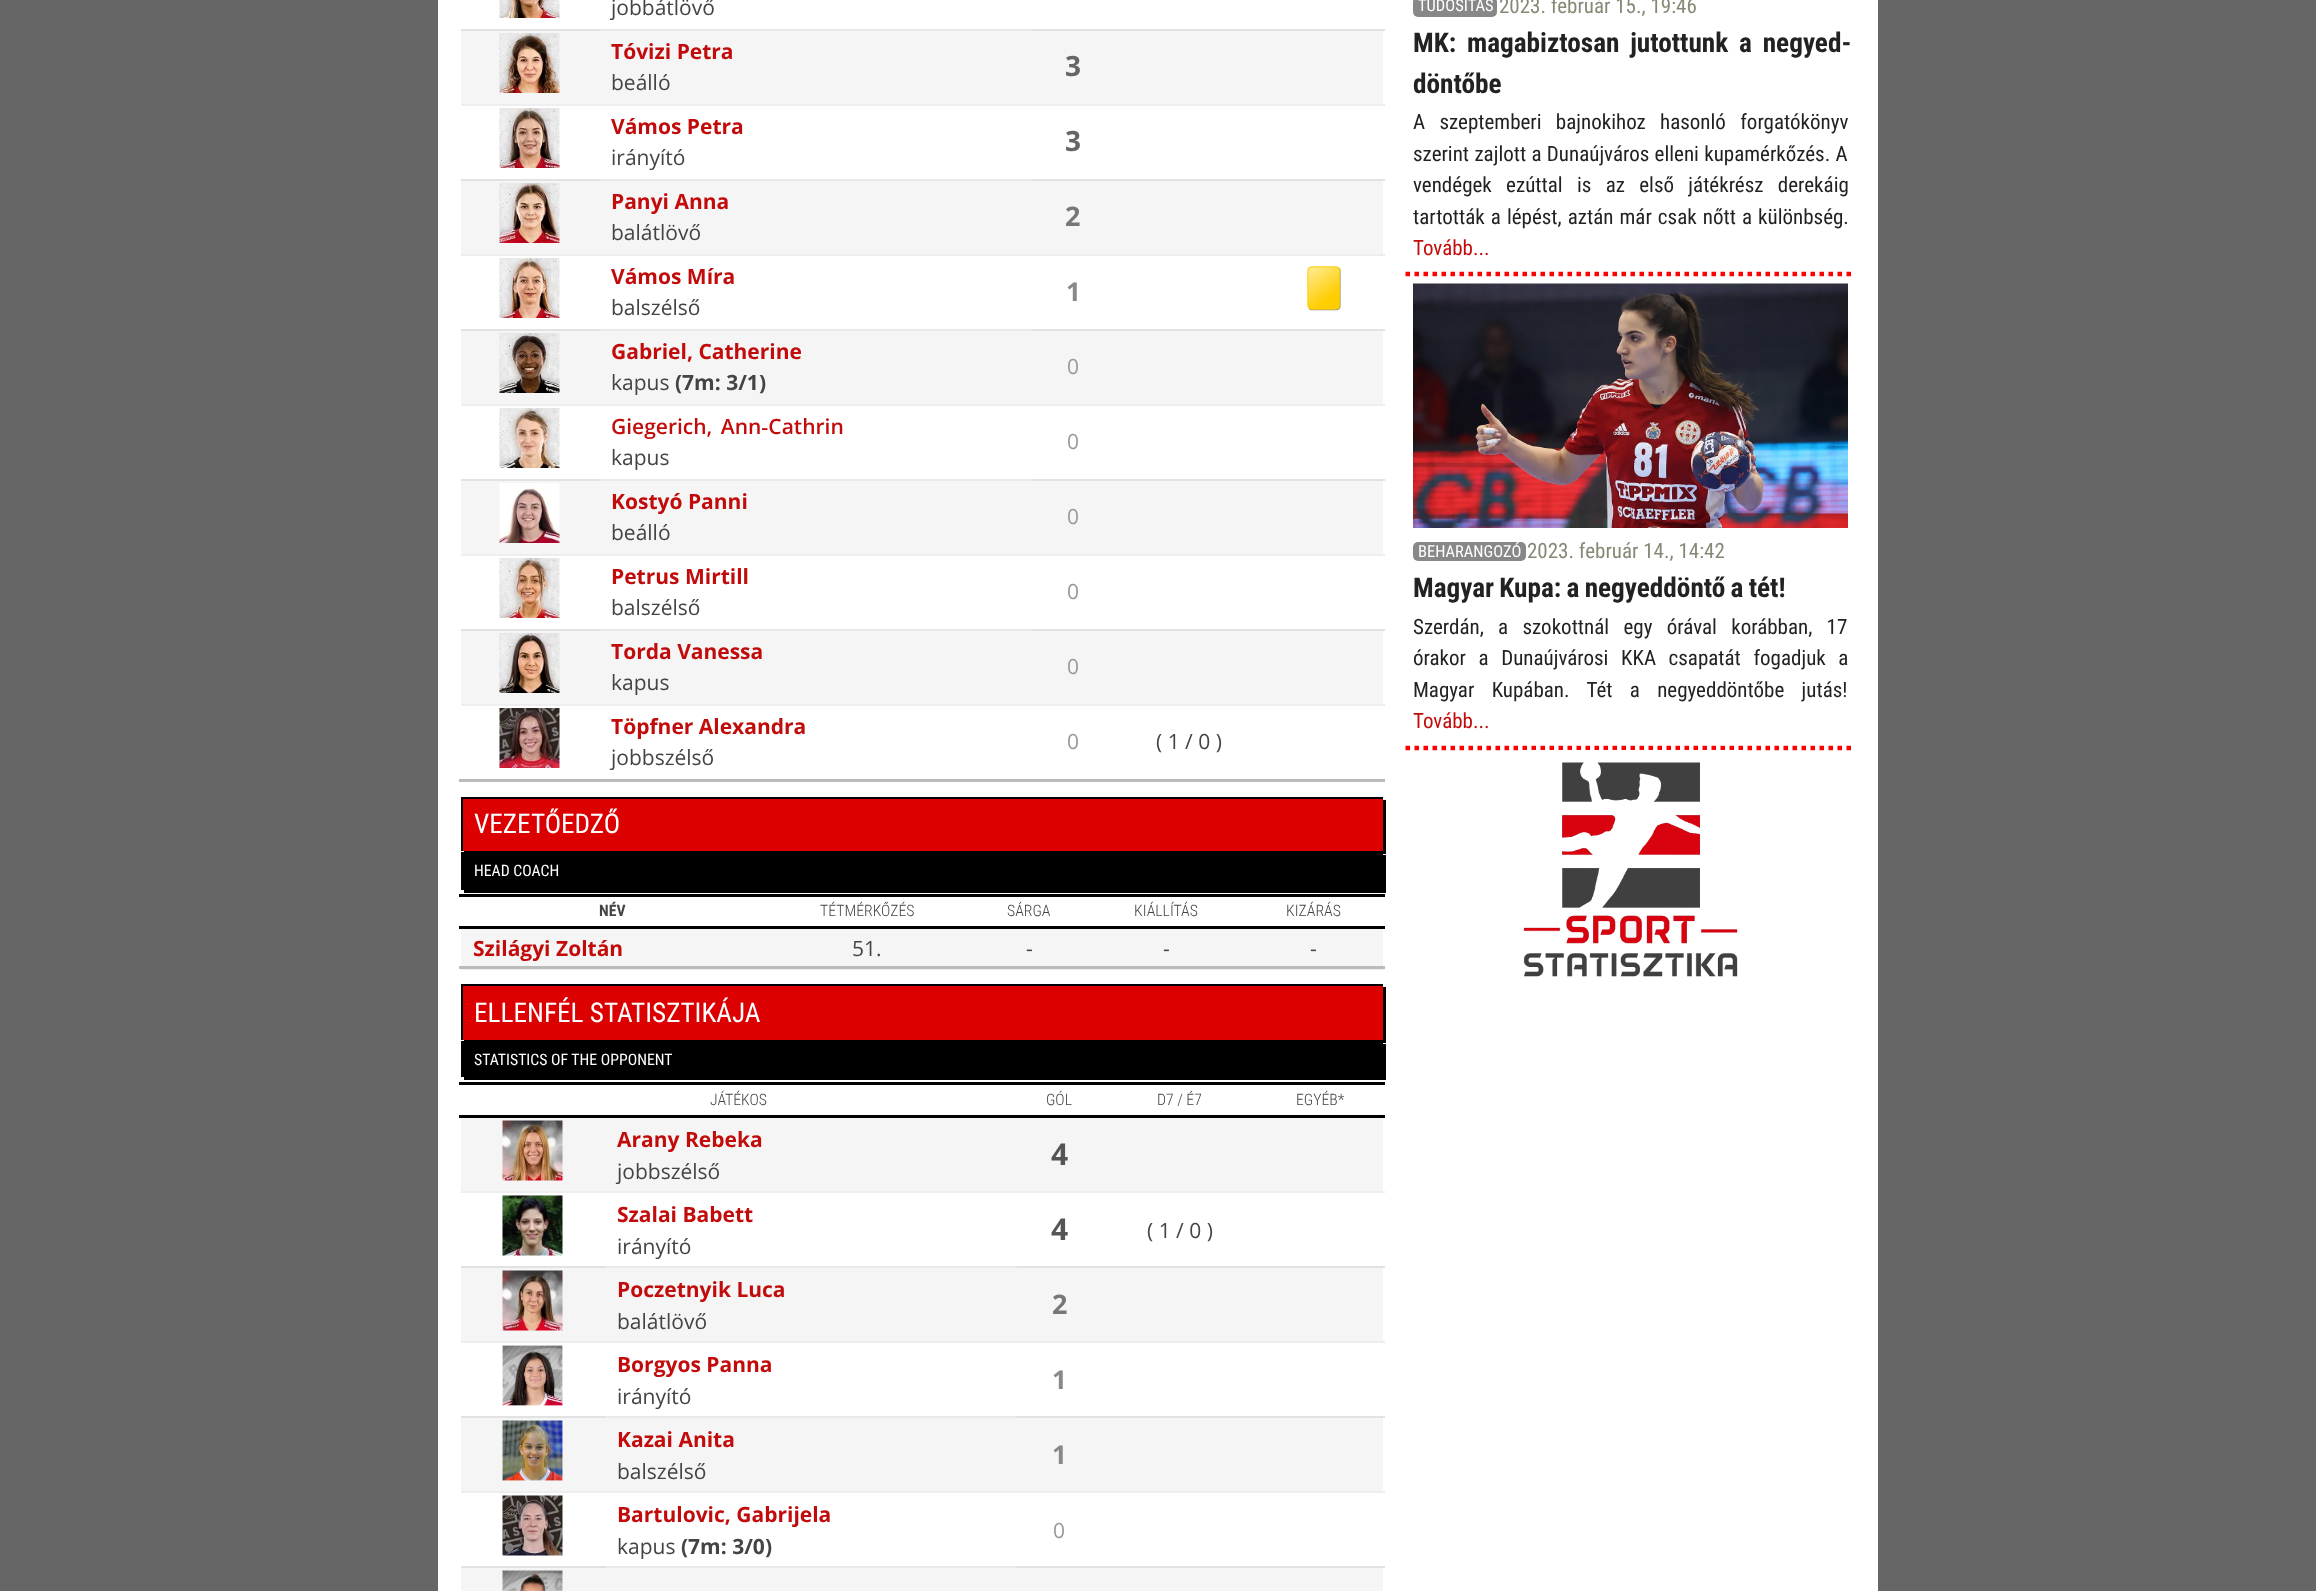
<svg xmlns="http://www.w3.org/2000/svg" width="2316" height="1591">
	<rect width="100%" height="100%" fill="#666666" />
	<rect x="438" y="0" width="1440" height="1591" fill="#FFFFFF" />
	<rect x="459" y="779" width="926" height="3" fill="#BBBBBB" />
	<image x="499" y="0" width="61" height="18" href="assets/img1.png" />
	<text x="611" y="15" font-family="Open Sans" font-size="21" fill="#444444">jobbátlövő</text>
	<rect x="461" y="31" width="922" height="73" fill="#F5F5F5" />
	<rect x="1031" y="29" width="354" height="2" fill="#E2E2E2" />
	<rect x="599" y="29" width="433" height="2" fill="#EAEAEA" />
	<rect x="461" y="29" width="139" height="2" fill="#E2E2E2" />
	<image x="499" y="33" width="61" height="60" href="assets/img2.png" />
	<rect x="461" y="104" width="924" height="2" fill="#EEEEEE" />
	<text x="611" y="59" font-family="Open Sans" font-size="21" font-weight="700" fill="#C20C0B">Tóvizi Petra</text>
	<text x="611" y="90" font-family="Open Sans" font-size="21" fill="#444444">beálló</text>
	<text x="1065" y="76" font-family="Open Sans" font-size="28" font-weight="700" fill="#666666">3</text>
	<image x="499" y="108" width="61" height="60" href="assets/img3.png" />
	<text x="611" y="134" font-family="Open Sans" font-size="21" font-weight="700" fill="#C20C0B">Vámos Petra</text>
	<text x="611" y="165" font-family="Open Sans" font-size="21" fill="#444444">irányító</text>
	<text x="1065" y="151" font-family="Open Sans" font-size="28" font-weight="700" fill="#666666">3</text>
	<rect x="461" y="181" width="922" height="73" fill="#F5F5F5" />
	<rect x="1031" y="179" width="354" height="2" fill="#E2E2E2" />
	<rect x="599" y="179" width="433" height="2" fill="#EAEAEA" />
	<rect x="461" y="179" width="139" height="2" fill="#E2E2E2" />
	<image x="499" y="183" width="61" height="60" href="assets/img4.png" />
	<rect x="461" y="254" width="924" height="2" fill="#EEEEEE" />
	<text x="611" y="209" font-family="Open Sans" font-size="21" font-weight="700" fill="#C20C0B">Panyi Anna</text>
	<text x="611" y="240" font-family="Open Sans" font-size="21" fill="#444444">balátlövő</text>
	<text x="1065" y="226" font-family="Open Sans" font-size="27" font-weight="700" fill="#777777">2</text>
	<image x="499" y="258" width="61" height="60" href="assets/img5.png" />
	<text x="611" y="284" font-family="Open Sans" font-size="21" font-weight="700" fill="#C20C0B">Vámos Míra</text>
	<text x="611" y="315" font-family="Open Sans" font-size="21" fill="#444444">balszélső</text>
	<text x="1066" y="301" font-family="Open Sans" font-size="26" font-weight="700" fill="#888888">1</text>
	<image x="1307" y="266" width="34" height="45" href="assets/img6.png" />
	<rect x="461" y="331" width="922" height="73" fill="#F5F5F5" />
	<rect x="1031" y="329" width="354" height="2" fill="#E2E2E2" />
	<rect x="599" y="329" width="433" height="2" fill="#EAEAEA" />
	<rect x="461" y="329" width="139" height="2" fill="#E2E2E2" />
	<image x="499" y="333" width="61" height="60" href="assets/img7.png" />
	<rect x="461" y="404" width="924" height="2" fill="#EEEEEE" />
	<text x="611" y="359" font-family="Open Sans" font-size="21" font-weight="700" fill="#C20C0B">Gabriel, Catherine</text>
	<text x="611" y="390" font-family="Open Sans" font-size="21" fill="#444444">kapus</text>
	<text x="675" y="390" font-family="Open Sans" font-size="21" font-weight="700" fill="#444444">(7m: 3/1)</text>
	<text x="1067" y="374" font-family="Open Sans" font-size="21" fill="#999999">0</text>
	<image x="499" y="408" width="61" height="60" href="assets/img8.png" />
	<text x="611" y="434" word-spacing="3" font-family="Open Sans" font-size="21" font-weight="600" fill="#C20C0B">Giegerich, Ann‑Cathrin</text>
	<text x="611" y="465" font-family="Open Sans" font-size="21" fill="#444444">kapus</text>
	<text x="1067" y="449" font-family="Open Sans" font-size="21" fill="#999999">0</text>
	<rect x="461" y="481" width="922" height="73" fill="#F5F5F5" />
	<rect x="1031" y="479" width="354" height="2" fill="#E2E2E2" />
	<rect x="599" y="479" width="433" height="2" fill="#EAEAEA" />
	<rect x="461" y="479" width="139" height="2" fill="#E2E2E2" />
	<image x="499" y="483" width="61" height="60" href="assets/img9.png" />
	<rect x="461" y="554" width="924" height="2" fill="#EEEEEE" />
	<text x="611" y="509" font-family="Open Sans" font-size="21" font-weight="700" fill="#C20C0B">Kostyó Panni</text>
	<text x="611" y="540" font-family="Open Sans" font-size="21" fill="#444444">beálló</text>
	<text x="1067" y="524" font-family="Open Sans" font-size="21" fill="#999999">0</text>
	<image x="499" y="558" width="61" height="60" href="assets/img10.png" />
	<text x="611" y="584" font-family="Open Sans" font-size="21" font-weight="700" fill="#C20C0B">Petrus Mirtill</text>
	<text x="611" y="615" font-family="Open Sans" font-size="21" fill="#444444">balszélső</text>
	<text x="1067" y="599" font-family="Open Sans" font-size="21" fill="#999999">0</text>
	<rect x="461" y="631" width="922" height="73" fill="#F5F5F5" />
	<rect x="1031" y="629" width="354" height="2" fill="#E2E2E2" />
	<rect x="599" y="629" width="433" height="2" fill="#EAEAEA" />
	<rect x="461" y="629" width="139" height="2" fill="#E2E2E2" />
	<image x="499" y="633" width="61" height="60" href="assets/img11.png" />
	<rect x="461" y="704" width="924" height="2" fill="#EEEEEE" />
	<text x="611" y="659" font-family="Open Sans" font-size="21" font-weight="700" fill="#C20C0B">Torda Vanessa</text>
	<text x="611" y="690" font-family="Open Sans" font-size="21" fill="#444444">kapus</text>
	<text x="1067" y="674" font-family="Open Sans" font-size="21" fill="#999999">0</text>
	<image x="499" y="708" width="61" height="60" href="assets/img12.png" />
	<text x="611" y="734" font-family="Open Sans" font-size="21" font-weight="700" fill="#C20C0B">Töpfner Alexandra</text>
	<text x="611" y="765" font-family="Open Sans" font-size="21" fill="#444444">jobbszélső</text>
	<text x="1067" y="749" font-family="Open Sans" font-size="21" fill="#999999">0</text>
	<text x="1156" y="749" font-family="Open Sans" font-size="21" fill="#444444">( 1 / 0 )</text>
	<path d="M464 850V854H1386V800H1383V850Z" fill="#000000" />
	<rect x="463" y="799" width="920" height="52" fill="#DD0000" />
	<rect x="461" y="797" width="922" height="2" fill="#000000" />
	<rect x="461" y="797" width="2" height="54" fill="#000000" />
	<text x="474" y="833" font-family="Roboto Condensed" font-size="27.25" fill="#FFFFFF">VEZETŐEDZŐ</text>
	<path d="M464 890V893H1386V855H1383V890Z" fill="#000000" />
	<rect x="463" y="854" width="920" height="36" fill="#000000" />
	<rect x="461" y="852" width="3" height="2" fill="#000000" />
	<rect x="461" y="852" width="2" height="38" fill="#000000" />
	<text x="474" y="876" font-family="Roboto Condensed" font-size="15.75" fill="#FFFFFF">HEAD COACH</text>
	<text x="599" y="916" font-family="Roboto Condensed" font-size="15.75" font-weight="700" fill="#444444">NÉV</text>
	<g font-family="Roboto Condensed" font-size="15.75" font-weight="300" fill="#444444">
		<text x="820" y="916">TÉTMÉRKŐZÉS</text>
		<text x="1007" y="916">SÁRGA</text>
		<text x="1134" y="916">KIÁLLÍTÁS</text>
	</g>
	<rect x="459" y="894" width="926" height="3" fill="#000000" />
	<rect x="459" y="926" width="926" height="3" fill="#000000" />
	<text x="1286" y="916" font-family="Roboto Condensed" font-size="15.75" font-weight="300" fill="#444444">KIZÁRÁS</text>
	<rect x="459" y="966" width="926" height="3" fill="#BBBBBB" />
	<rect x="461" y="929" width="922" height="37" fill="#F5F5F5" />
	<text x="473" y="956" font-family="Open Sans" font-size="21" font-weight="700" fill="#C20C0B">Szilágyi Zoltán</text>
	<g font-family="Open Sans" font-size="21" fill="#444444">
		<text x="852" y="956">51.</text>
		<text x="1026" y="956">-</text>
		<text x="1163" y="956">-</text>
	</g>
	<rect x="461" y="969" width="924" height="1" fill="#EEEEEE" />
	<text x="1310" y="956" font-family="Open Sans" font-size="21" fill="#444444">-</text>
	<path d="M464 1040V1043H1386V987H1383V1040Z" fill="#000000" />
	<rect x="463" y="986" width="920" height="54" fill="#DD0000" />
	<rect x="461" y="984" width="922" height="2" fill="#000000" />
	<rect x="461" y="984" width="2" height="56" fill="#000000" />
	<text x="474" y="1022" font-family="Roboto Condensed" font-size="27.25" fill="#FFFFFF">ELLENFÉL STATISZTIKÁJA</text>
	<path d="M464 1077V1080H1386V1044H1383V1077Z" fill="#000000" />
	<rect x="463" y="1043" width="920" height="34" fill="#000000" />
	<rect x="461" y="1041" width="3" height="2" fill="#000000" />
	<rect x="461" y="1041" width="2" height="36" fill="#000000" />
	<text x="474" y="1065" font-family="Roboto Condensed" font-size="15.75" fill="#FFFFFF">STATISTICS OF THE OPPONENT</text>
	<g font-family="Roboto Condensed" font-size="15.75" font-weight="300" fill="#444444">
		<text x="710" y="1105">JÁTÉKOS</text>
		<text x="1046" y="1105">GÓL</text>
		<text x="1157" y="1105">D7 / É7</text>
	</g>
	<rect x="459" y="1082" width="926" height="3" fill="#000000" />
	<rect x="459" y="1115" width="926" height="3" fill="#000000" />
	<text x="1296" y="1105" font-family="Roboto Condensed" font-size="15.75" font-weight="300" fill="#444444">EGYÉB*</text>
	<rect x="461" y="1118" width="922" height="73" fill="#F5F5F5" />
	<image x="502" y="1120" width="61" height="61" href="assets/img13.png" />
	<text x="617" y="1147" font-family="Open Sans" font-size="21" font-weight="700" fill="#C20C0B">Arany Rebeka</text>
	<text x="617" y="1179" font-family="Open Sans" font-size="21" fill="#444444">jobbszélső</text>
	<text x="1051" y="1165" font-family="Open Sans" font-size="30" font-weight="700" fill="#555555">4</text>
	<rect x="461" y="1191" width="924" height="2" fill="#EEEEEE" />
	<image x="502" y="1195" width="61" height="61" href="assets/img14.png" />
	<text x="617" y="1222" font-family="Open Sans" font-size="21" font-weight="700" fill="#C20C0B">Szalai Babett</text>
	<text x="617" y="1254" font-family="Open Sans" font-size="21" fill="#444444">irányító</text>
	<text x="1051" y="1240" font-family="Open Sans" font-size="30" font-weight="700" fill="#555555">4</text>
	<text x="1147" y="1238" font-family="Open Sans" font-size="21" fill="#444444">( 1 / 0 )</text>
	<rect x="461" y="1268" width="922" height="73" fill="#F5F5F5" />
	<rect x="1016" y="1266" width="369" height="2" fill="#E2E2E2" />
	<rect x="605" y="1266" width="412" height="2" fill="#EAEAEA" />
	<rect x="461" y="1266" width="145" height="2" fill="#E2E2E2" />
	<image x="502" y="1270" width="61" height="61" href="assets/img15.png" />
	<rect x="461" y="1341" width="924" height="2" fill="#EEEEEE" />
	<text x="617" y="1297" font-family="Open Sans" font-size="21" font-weight="700" fill="#C20C0B">Poczetnyik Luca</text>
	<text x="617" y="1329" font-family="Open Sans" font-size="21" fill="#444444">balátlövő</text>
	<text x="1052" y="1314" font-family="Open Sans" font-size="27" font-weight="700" fill="#777777">2</text>
	<image x="502" y="1345" width="61" height="61" href="assets/img16.png" />
	<text x="617" y="1372" font-family="Open Sans" font-size="21" font-weight="700" fill="#C20C0B">Borgyos Panna</text>
	<text x="617" y="1404" font-family="Open Sans" font-size="21" fill="#444444">irányító</text>
	<text x="1052" y="1389" font-family="Open Sans" font-size="26" font-weight="700" fill="#888888">1</text>
	<rect x="461" y="1418" width="922" height="73" fill="#F5F5F5" />
	<rect x="1016" y="1416" width="369" height="2" fill="#E2E2E2" />
	<rect x="605" y="1416" width="412" height="2" fill="#EAEAEA" />
	<rect x="461" y="1416" width="145" height="2" fill="#E2E2E2" />
	<image x="502" y="1420" width="61" height="61" href="assets/img17.png" />
	<rect x="461" y="1491" width="924" height="2" fill="#EEEEEE" />
	<text x="617" y="1447" font-family="Open Sans" font-size="21" font-weight="700" fill="#C20C0B">Kazai Anita</text>
	<text x="617" y="1479" font-family="Open Sans" font-size="21" fill="#444444">balszélső</text>
	<text x="1052" y="1464" font-family="Open Sans" font-size="26" font-weight="700" fill="#888888">1</text>
	<image x="502" y="1495" width="61" height="61" href="assets/img18.png" />
	<text x="617" y="1522" font-family="Open Sans" font-size="21" font-weight="700" fill="#C20C0B">Bartulovic, Gabrijela</text>
	<text x="617" y="1554" font-family="Open Sans" font-size="21" fill="#444444">kapus</text>
	<text x="681" y="1554" font-family="Open Sans" font-size="21" font-weight="700" fill="#444444">(7m: 3/0)</text>
	<text x="1053" y="1538" font-family="Open Sans" font-size="21" fill="#999999">0</text>
	<rect x="461" y="1568" width="922" height="23" fill="#F5F5F5" />
	<rect x="1016" y="1566" width="369" height="2" fill="#E2E2E2" />
	<rect x="605" y="1566" width="412" height="2" fill="#EAEAEA" />
	<rect x="461" y="1566" width="145" height="2" fill="#E2E2E2" />
	<image x="502" y="1570" width="61" height="21" href="assets/img19.png" />
	<path d="M1405.5 274H1855.5" fill="none" stroke="#FF0000" stroke-width="4.5" stroke-dasharray="4.5 4.5" />
	<rect x="1413" y="-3" width="84" height="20" rx="5" fill="#888888" />
	<text x="1418" y="11" font-family="Roboto Condensed" font-size="16.5" fill="#FFFFFF">TUDÓSÍTÁS</text>
	<text x="1499" y="13" font-family="Roboto Condensed" font-size="21" fill="#888877">2023. február 15., 19:46</text>
	<g font-family="Roboto Condensed" font-size="27.25" font-weight="700" fill="#222222">
		<text x="1413" y="52" word-spacing="4.5">MK: magabiztosan jutottunk a negyed-</text>
		<text x="1413" y="93">döntőbe</text>
	</g>
	<g font-family="Roboto Condensed" font-size="21" fill="#222222">
		<text x="1413" y="129" word-spacing="9.5">A szeptemberi bajnokihoz hasonló forgatókönyv</text>
		<text x="1413" y="161" word-spacing="0.5">szerint zajlott a Dunaújváros elleni kupamérkőzés. A</text>
		<text x="1413" y="192" word-spacing="9.5">vendégek ezúttal is az első játékrész derekáig</text>
		<text x="1413" y="224" word-spacing="1.25">tartották a lépést, aztán már csak nőtt a különbség.</text>
	</g>
	<text x="1413" y="255" font-family="Roboto Condensed" font-size="21" fill="#C20C0B">Tovább...</text>
	<path d="M1405.5 748H1855.5" fill="none" stroke="#FF0000" stroke-width="4.5" stroke-dasharray="4.5 4.5" />
	<image x="1413" y="283" width="435" height="245" href="assets/img20.png" />
	<rect x="1413" y="542" width="113" height="19" rx="5" fill="#888888" />
	<text x="1418" y="557" font-family="Roboto Condensed" font-size="16.5" fill="#FFFFFF">BEHARANGOZÓ</text>
	<text x="1527" y="558" font-family="Roboto Condensed" font-size="21" fill="#888877">2023. február 14., 14:42</text>
	<text x="1413" y="597" word-spacing="-1" font-family="Roboto Condensed" font-size="27.25" font-weight="700" fill="#222222">Magyar Kupa: a negyeddöntő a tét!</text>
	<g font-family="Roboto Condensed" font-size="21" fill="#222222">
		<text x="1413" y="634" word-spacing="9.5">Szerdán, a szokottnál egy órával korábban, 17</text>
		<text x="1413" y="665" word-spacing="7.75">órakor a Dunaújvárosi KKA csapatát fogadjuk a</text>
		<text x="1413" y="697" word-spacing="12.5">Magyar Kupában. Tét a negyeddöntőbe jutás!</text>
	</g>
	<text x="1413" y="728" font-family="Roboto Condensed" font-size="21" fill="#C20C0B">Tovább...</text>
	<image x="1522" y="750" width="221" height="227" href="assets/img21.png" />
</svg>
